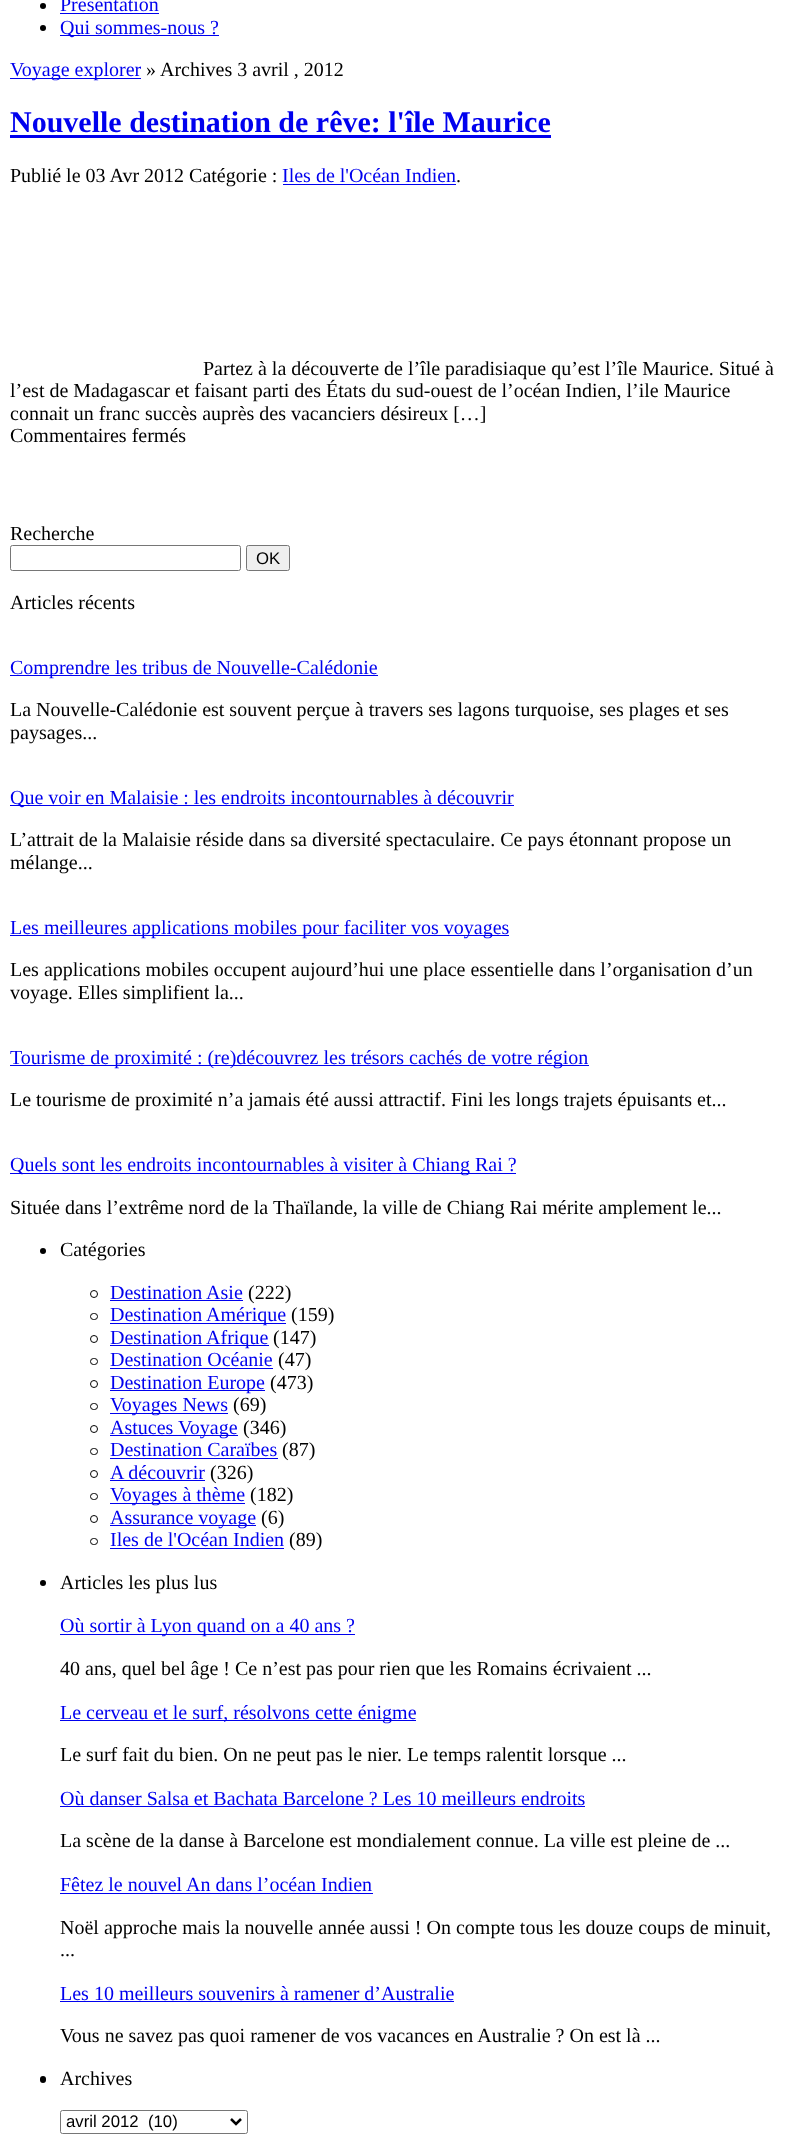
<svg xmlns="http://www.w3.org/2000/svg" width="794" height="2146">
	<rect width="100%" height="100%" fill="#FFFFFF" />
	<circle cx="43" cy="6" r="3" fill="#000000" />
	<text x="60" y="11" font-family="Liberation Serif" font-size="20" fill="#0000EE">Presentation</text>
	<rect x="60" y="13" width="99" height="1" fill="#0000EE" />
	<circle cx="43" cy="28" r="3" fill="#000000" />
	<rect x="60" y="35" width="159" height="1" fill="#0000EE" />
	<text x="60" y="34" font-family="Liberation Serif" font-size="20" fill="#0000EE">Qui sommes-nous ?</text>
	<rect x="10" y="78" width="131" height="1" fill="#0000EE" />
	<text x="10" y="76" font-family="Liberation Serif" font-size="20" fill="#0000EE">Voyage explorer</text>
	<g font-family="Liberation Serif" font-size="20" fill="#000000">
		<text x="146" y="76">»</text>
		<text x="160" y="76">Archives 3 avril , 2012</text>
	</g>
	<text x="10" y="132" font-family="Liberation Serif" font-size="30" font-weight="700" fill="#0000EE">Nouvelle destination de rêve: l'île Maurice</text>
	<rect x="10" y="135" width="541" height="3" fill="#0000EE" />
	<text x="10" y="182" font-family="Liberation Serif" font-size="20" fill="#000000">Publié le 03 Avr 2012 Catégorie :</text>
	<text x="282" y="182" font-family="Liberation Serif" font-size="20" fill="#0000EE">Iles de l'Océan Indien</text>
	<text x="456" y="182" font-family="Liberation Serif" font-size="20" fill="#000000">.</text>
	<rect x="283" y="184" width="173" height="1" fill="#0000EE" />
	<g font-family="Liberation Serif" font-size="20" fill="#000000">
		<text x="203" y="375">Partez à la découverte de l’île paradisiaque qu’est l’île Maurice. Situé à</text>
		<text x="10" y="397">l’est de Madagascar et faisant parti des États du sud-ouest de l’océan Indien, l’ile Maurice</text>
		<text x="10" y="420">connait un franc succès auprès des vacanciers désireux […]</text>
		<text x="10" y="442">Commentaires fermés</text>
		<text x="10" y="540">Recherche</text>
	</g>
	<rect x="10.5" y="545.5" width="230" height="25" rx="2" fill="none" stroke="#767676" />
	<rect x="246.5" y="545.5" width="43" height="25" rx="2" fill="#EFEFEF" stroke="#767676" />
	<text x="256" y="564" font-family="Liberation Sans" font-size="16.75" fill="#000000">OK</text>
	<text x="10" y="609" font-family="Liberation Serif" font-size="20" fill="#000000">Articles récents</text>
	<rect x="10" y="675" width="368" height="1" fill="#0000EE" />
	<text x="10" y="674" font-family="Liberation Serif" font-size="20" fill="#0000EE">Comprendre les tribus de Nouvelle-Calédonie</text>
	<g font-family="Liberation Serif" font-size="20" fill="#000000">
		<text x="10" y="716">La Nouvelle-Calédonie est souvent perçue à travers ses lagons turquoise, ses plages et ses</text>
		<text x="10" y="739">paysages...</text>
	</g>
	<rect x="10" y="805" width="504" height="1" fill="#0000EE" />
	<text x="10" y="804" font-family="Liberation Serif" font-size="20" fill="#0000EE">Que voir en Malaisie : les endroits incontournables à découvrir</text>
	<g font-family="Liberation Serif" font-size="20" fill="#000000">
		<text x="10" y="846">L’attrait de la Malaisie réside dans sa diversité spectaculaire. Ce pays étonnant propose un</text>
		<text x="10" y="869">mélange...</text>
	</g>
	<rect x="10" y="935" width="499" height="1" fill="#0000EE" />
	<text x="10" y="934" font-family="Liberation Serif" font-size="20" fill="#0000EE">Les meilleures applications mobiles pour faciliter vos voyages</text>
	<g font-family="Liberation Serif" font-size="20" fill="#000000">
		<text x="10" y="976">Les applications mobiles occupent aujourd’hui une place essentielle dans l’organisation d’un</text>
		<text x="10" y="999">voyage. Elles simplifient la...</text>
	</g>
	<rect x="10" y="1065" width="579" height="1" fill="#0000EE" />
	<text x="10" y="1064" font-family="Liberation Serif" font-size="20" fill="#0000EE">Tourisme de proximité : (re)découvrez les trésors cachés de votre région</text>
	<text x="10" y="1106" font-family="Liberation Serif" font-size="20" fill="#000000">Le tourisme de proximité n’a jamais été aussi attractif. Fini les longs trajets épuisants et...</text>
	<rect x="10" y="1173" width="506" height="1" fill="#0000EE" />
	<text x="10" y="1171" font-family="Liberation Serif" font-size="20" fill="#0000EE">Quels sont les endroits incontournables à visiter à Chiang Rai ?</text>
	<text x="10" y="1214" font-family="Liberation Serif" font-size="20" fill="#000000">Située dans l’extrême nord de la Thaïlande, la ville de Chiang Rai mérite amplement le...</text>
	<circle cx="43" cy="1251" r="3" fill="#000000" />
	<text x="60" y="1256" font-family="Liberation Serif" font-size="20" fill="#000000">Catégories</text>
	<circle cx="94" cy="1294" r="3.5" fill="none" stroke="#000000" />
	<text x="110" y="1299" font-family="Liberation Serif" font-size="20" fill="#0000EE">Destination Asie</text>
	<rect x="110" y="1300" width="133" height="1" fill="#0000EE" />
	<text x="248" y="1299" font-family="Liberation Serif" font-size="20" fill="#000000">(222)</text>
	<rect x="90.5" y="1313.5" width="7" height="6" rx="3" fill="none" stroke="#000000" />
	<rect x="110" y="1323" width="176" height="1" fill="#0000EE" />
	<text x="110" y="1321" font-family="Liberation Serif" font-size="20" fill="#0000EE">Destination Amérique</text>
	<text x="291" y="1321" font-family="Liberation Serif" font-size="20" fill="#000000">(159)</text>
	<circle cx="94" cy="1339" r="3.5" fill="none" stroke="#000000" />
	<rect x="110" y="1345" width="159" height="1" fill="#0000EE" />
	<text x="110" y="1344" font-family="Liberation Serif" font-size="20" fill="#0000EE">Destination Afrique</text>
	<text x="273" y="1344" font-family="Liberation Serif" font-size="20" fill="#000000">(147)</text>
	<rect x="90.5" y="1358.5" width="7" height="6" rx="3" fill="none" stroke="#000000" />
	<text x="110" y="1366" font-family="Liberation Serif" font-size="20" fill="#0000EE">Destination Océanie</text>
	<rect x="110" y="1368" width="163" height="1" fill="#0000EE" />
	<text x="278" y="1366" font-family="Liberation Serif" font-size="20" fill="#000000">(47)</text>
	<circle cx="94" cy="1384" r="3.5" fill="none" stroke="#000000" />
	<rect x="110" y="1390" width="155" height="1" fill="#0000EE" />
	<text x="110" y="1389" font-family="Liberation Serif" font-size="20" fill="#0000EE">Destination Europe</text>
	<text x="270" y="1389" font-family="Liberation Serif" font-size="20" fill="#000000">(473)</text>
	<rect x="90.5" y="1403.5" width="7" height="6" rx="3" fill="none" stroke="#000000" />
	<rect x="110" y="1413" width="118" height="1" fill="#0000EE" />
	<text x="110" y="1411" font-family="Liberation Serif" font-size="20" fill="#0000EE">Voyages News</text>
	<text x="233" y="1411" font-family="Liberation Serif" font-size="20" fill="#000000">(69)</text>
	<circle cx="94" cy="1429" r="3.5" fill="none" stroke="#000000" />
	<rect x="110" y="1435" width="128" height="1" fill="#0000EE" />
	<text x="110" y="1434" font-family="Liberation Serif" font-size="20" fill="#0000EE">Astuces Voyage</text>
	<text x="243" y="1434" font-family="Liberation Serif" font-size="20" fill="#000000">(346)</text>
	<rect x="90.5" y="1448.5" width="7" height="6" rx="3" fill="none" stroke="#000000" />
	<text x="110" y="1456" font-family="Liberation Serif" font-size="20" fill="#0000EE">Destination Caraïbes</text>
	<rect x="110" y="1458" width="168" height="1" fill="#0000EE" />
	<text x="282" y="1456" font-family="Liberation Serif" font-size="20" fill="#000000">(87)</text>
	<circle cx="94" cy="1474" r="3.5" fill="none" stroke="#000000" />
	<text x="110" y="1479" font-family="Liberation Serif" font-size="20" fill="#0000EE">A découvrir</text>
	<rect x="110" y="1480" width="95" height="1" fill="#0000EE" />
	<text x="210" y="1479" font-family="Liberation Serif" font-size="20" fill="#000000">(326)</text>
	<rect x="90.5" y="1493.5" width="7" height="6" rx="3" fill="none" stroke="#000000" />
	<rect x="110" y="1503" width="135" height="1" fill="#0000EE" />
	<text x="110" y="1501" font-family="Liberation Serif" font-size="20" fill="#0000EE">Voyages à thème</text>
	<text x="250" y="1501" font-family="Liberation Serif" font-size="20" fill="#000000">(182)</text>
	<circle cx="94" cy="1519" r="3.5" fill="none" stroke="#000000" />
	<rect x="110" y="1525" width="146" height="1" fill="#0000EE" />
	<text x="110" y="1524" font-family="Liberation Serif" font-size="20" fill="#0000EE">Assurance voyage</text>
	<text x="261" y="1524" font-family="Liberation Serif" font-size="20" fill="#000000">(6)</text>
	<rect x="90.5" y="1538.5" width="7" height="6" rx="3" fill="none" stroke="#000000" />
	<text x="110" y="1546" font-family="Liberation Serif" font-size="20" fill="#0000EE">Iles de l'Océan Indien</text>
	<rect x="110" y="1548" width="174" height="1" fill="#0000EE" />
	<text x="289" y="1546" font-family="Liberation Serif" font-size="20" fill="#000000">(89)</text>
	<circle cx="43" cy="1583" r="3" fill="#000000" />
	<text x="60" y="1589" font-family="Liberation Serif" font-size="20" fill="#000000">Articles les plus lus</text>
	<rect x="60" y="1634" width="295" height="1" fill="#0000EE" />
	<text x="60" y="1632" font-family="Liberation Serif" font-size="20" fill="#0000EE">Où sortir à Lyon quand on a 40 ans ?</text>
	<text x="60" y="1675" font-family="Liberation Serif" font-size="20" fill="#000000">40 ans, quel bel âge ! Ce n’est pas pour rien que les Romains écrivaient ...</text>
	<rect x="60" y="1720" width="356" height="1" fill="#0000EE" />
	<text x="60" y="1719" font-family="Liberation Serif" font-size="20" fill="#0000EE">Le cerveau et le surf, résolvons cette énigme</text>
	<text x="60" y="1761" font-family="Liberation Serif" font-size="20" fill="#000000">Le surf fait du bien. On ne peut pas le nier. Le temps ralentit lorsque ...</text>
	<text x="60" y="1805" font-family="Liberation Serif" font-size="20" fill="#0000EE">Où danser Salsa et Bachata Barcelone ? Les 10 meilleurs endroits</text>
	<rect x="60" y="1806" width="525" height="1" fill="#0000EE" />
	<text x="60" y="1847" font-family="Liberation Serif" font-size="20" fill="#000000">La scène de la danse à Barcelone est mondialement connue. La ville est pleine de ...</text>
	<text x="60" y="1891" font-family="Liberation Serif" font-size="20" fill="#0000EE">Fêtez le nouvel An dans l’océan Indien</text>
	<rect x="60" y="1893" width="313" height="1" fill="#0000EE" />
	<g font-family="Liberation Serif" font-size="20" fill="#000000">
		<text x="60" y="1934">Noël approche mais la nouvelle année aussi ! On compte tous les douze coups de minuit,</text>
		<text x="60" y="1956">...</text>
	</g>
	<text x="60" y="2000" font-family="Liberation Serif" font-size="20" fill="#0000EE">Les 10 meilleurs souvenirs à ramener d’Australie</text>
	<rect x="60" y="2001" width="394" height="1" fill="#0000EE" />
	<text x="60" y="2042" font-family="Liberation Serif" font-size="20" fill="#000000">Vous ne savez pas quoi ramener de vos vacances en Australie ? On est là ...</text>
	<rect x="40" y="2076" width="6" height="7" rx="3" fill="#000000" />
	<text x="60" y="2085" font-family="Liberation Serif" font-size="20" fill="#000000">Archives</text>
	<rect x="60.5" y="2110.5" width="187" height="23" rx="2" fill="none" stroke="#767676" />
	<path d="M231 2119L236 2124L241 2119" fill="none" stroke="#000000" stroke-width="2.5" />
	<text x="66" y="2127" font-family="Liberation Sans" font-size="16.75" fill="#000000" xml:space="preserve">avril 2012  (10)</text>
</svg>
